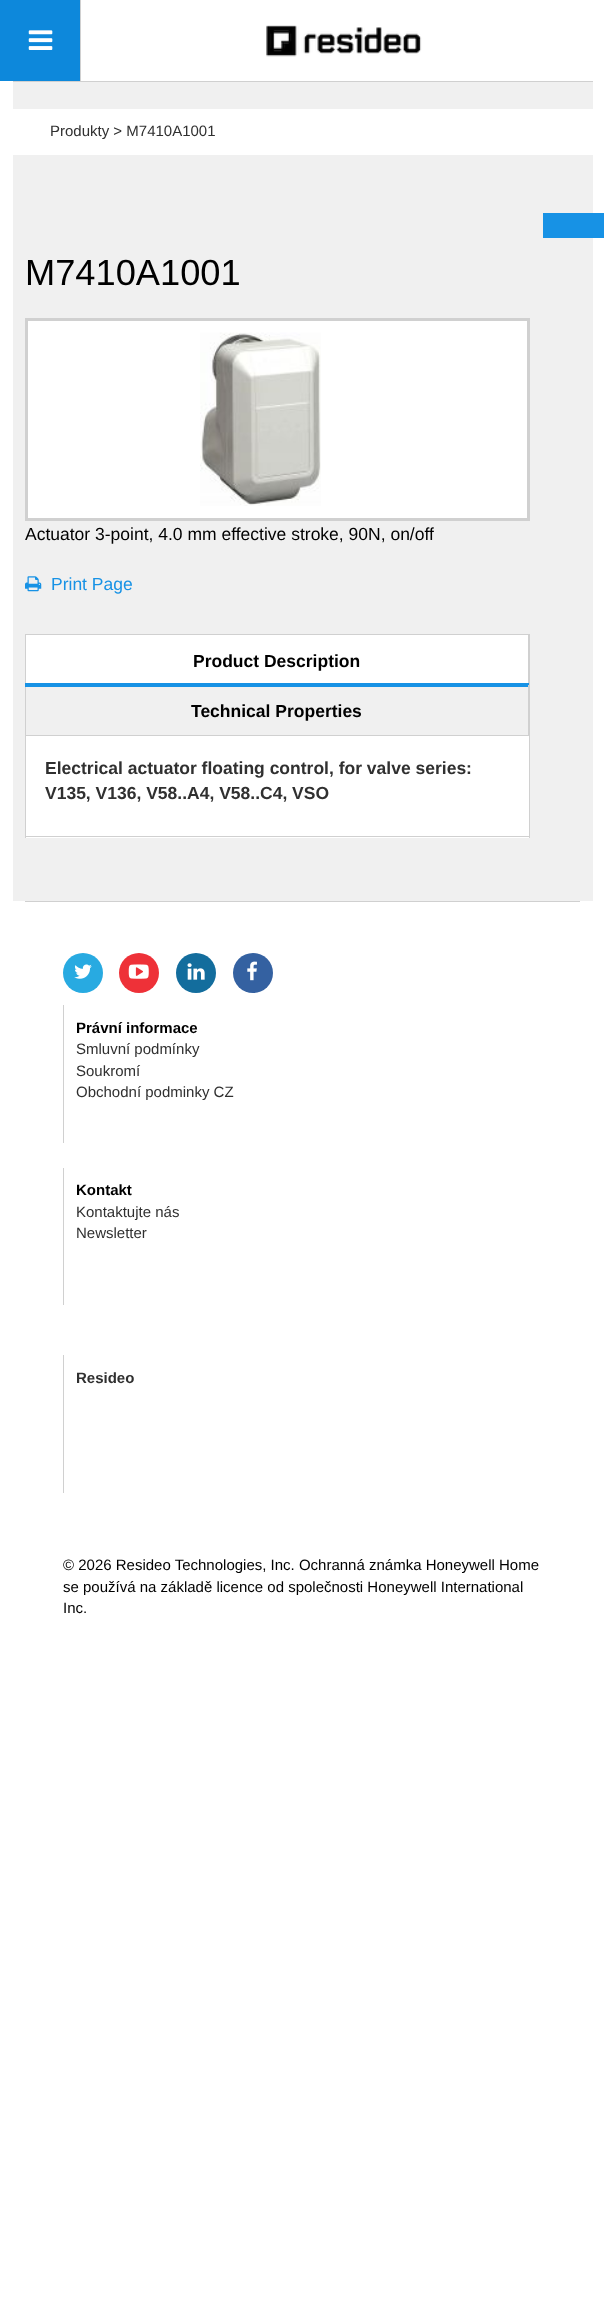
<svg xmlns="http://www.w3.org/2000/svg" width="604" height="2324">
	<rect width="100%" height="100%" fill="#FFFFFF" />
	<rect x="0" y="0" width="80" height="81" fill="#0D88DB" />
	<rect x="80" y="0" width="1" height="81" fill="#D0D0D0" />
	<image x="28" y="30" width="25" height="20" href="assets/img1.png" />
	<image x="266" y="25" width="156" height="32" href="assets/img2.png" />
	<rect x="13" y="82" width="580" height="819" fill="#F0F0F0" />
	<rect x="13" y="81" width="580" height="1" fill="#D0D0D0" />
	<rect x="13" y="109" width="580" height="46" fill="#FFFFFF" />
	<text x="50" y="136" font-family="Liberation Sans" font-size="15" fill="#303030">Produkty &gt; M7410A1001</text>
	<text x="25" y="285" font-family="Liberation Sans" font-size="36.25" fill="#000000">M7410A1001</text>
	<rect x="26.5" y="319.5" width="502" height="200" fill="#FFFFFF" stroke="#D0D0D0" stroke-width="3" />
	<image x="200" y="332" width="121" height="174" href="assets/img3.png" />
	<text x="25" y="540" font-family="Liberation Sans" font-size="17.5" fill="#000000">Actuator 3-point, 4.0 mm effective stroke, 90N, on/off</text>
	<image x="25" y="576" width="17" height="16" href="assets/img4.png" />
	<text x="51" y="590" font-family="Liberation Sans" font-size="17.5" fill="#1792E5">Print Page</text>
	<rect x="25.5" y="634.5" width="504" height="101" fill="none" stroke="#D0D0D0" />
	<rect x="26" y="635" width="502" height="48" fill="#FFFFFF" />
	<path d="M529 635V686L528 685V635Z" fill="#D0D0D0" />
	<text x="193" y="667" font-family="Liberation Sans" font-size="17.5" font-weight="700" fill="#000000">Product Description</text>
	<rect x="25" y="683" width="504" height="4" fill="#1792E5" />
	<path d="M529 685V736L528 735V685Z" fill="#D0D0D0" />
	<text x="191" y="717" font-family="Liberation Sans" font-size="17.5" font-weight="700" fill="#000000">Technical Properties</text>
	<rect x="26" y="736" width="503" height="102" fill="#FFFFFF" />
	<rect x="529" y="736" width="1" height="102" fill="#D0D0D0" />
	<rect x="25" y="836" width="505" height="1" fill="#D0D0D0" />
	<rect x="25" y="736" width="1" height="102" fill="#D0D0D0" />
	<g font-family="Liberation Sans" font-size="17.5" font-weight="700" fill="#303030">
		<text x="45" y="774">Electrical actuator floating control, for valve series:</text>
		<text x="45" y="799">V135, V136, V58..A4, V58..C4, VSO</text>
	</g>
	<rect x="543" y="213" width="61" height="25" fill="#1792E5" />
	<rect x="25" y="901" width="555" height="1" fill="#D0D0D0" />
	<circle cx="83" cy="973" r="20" fill="#28AAE1" />
	<image x="74" y="964" width="18" height="15" href="assets/img5.png" />
	<circle cx="139" cy="973" r="20" fill="#EE3138" />
	<image x="128" y="964" width="21" height="15" href="assets/img6.png" />
	<circle cx="196" cy="973" r="20" fill="#136D9D" />
	<image x="187" y="963" width="18" height="17" href="assets/img7.png" />
	<circle cx="253" cy="973" r="20" fill="#3461A1" />
	<image x="247" y="961" width="10" height="20" href="assets/img8.png" />
	<rect x="63" y="1005" width="1" height="138" fill="#D0D0D0" />
	<text x="76" y="1033" font-family="Liberation Sans" font-size="15" font-weight="700" fill="#000000">Právní informace</text>
	<g font-family="Liberation Sans" font-size="15" fill="#303030">
		<text x="76" y="1054">Smluvní podmínky</text>
		<text x="76" y="1076">Soukromí</text>
		<text x="76" y="1097">Obchodní podminky CZ</text>
	</g>
	<rect x="63" y="1168" width="1" height="137" fill="#D0D0D0" />
	<text x="76" y="1195" font-family="Liberation Sans" font-size="15" font-weight="700" fill="#000000">Kontakt</text>
	<g font-family="Liberation Sans" font-size="15" fill="#303030">
		<text x="76" y="1217">Kontaktujte nás</text>
		<text x="76" y="1238">Newsletter</text>
	</g>
	<rect x="63" y="1355" width="1" height="138" fill="#D0D0D0" />
	<text x="76" y="1383" font-family="Liberation Sans" font-size="15" font-weight="700" fill="#303030">Resideo</text>
	<g font-family="Liberation Sans" font-size="15" fill="#000000">
		<text x="63" y="1570">© 2026 Resideo Technologies, Inc. Ochranná známka Honeywell Home</text>
		<text x="63" y="1592">se používá na základě licence od společnosti Honeywell International</text>
		<text x="63" y="1613">Inc.</text>
	</g>
</svg>
